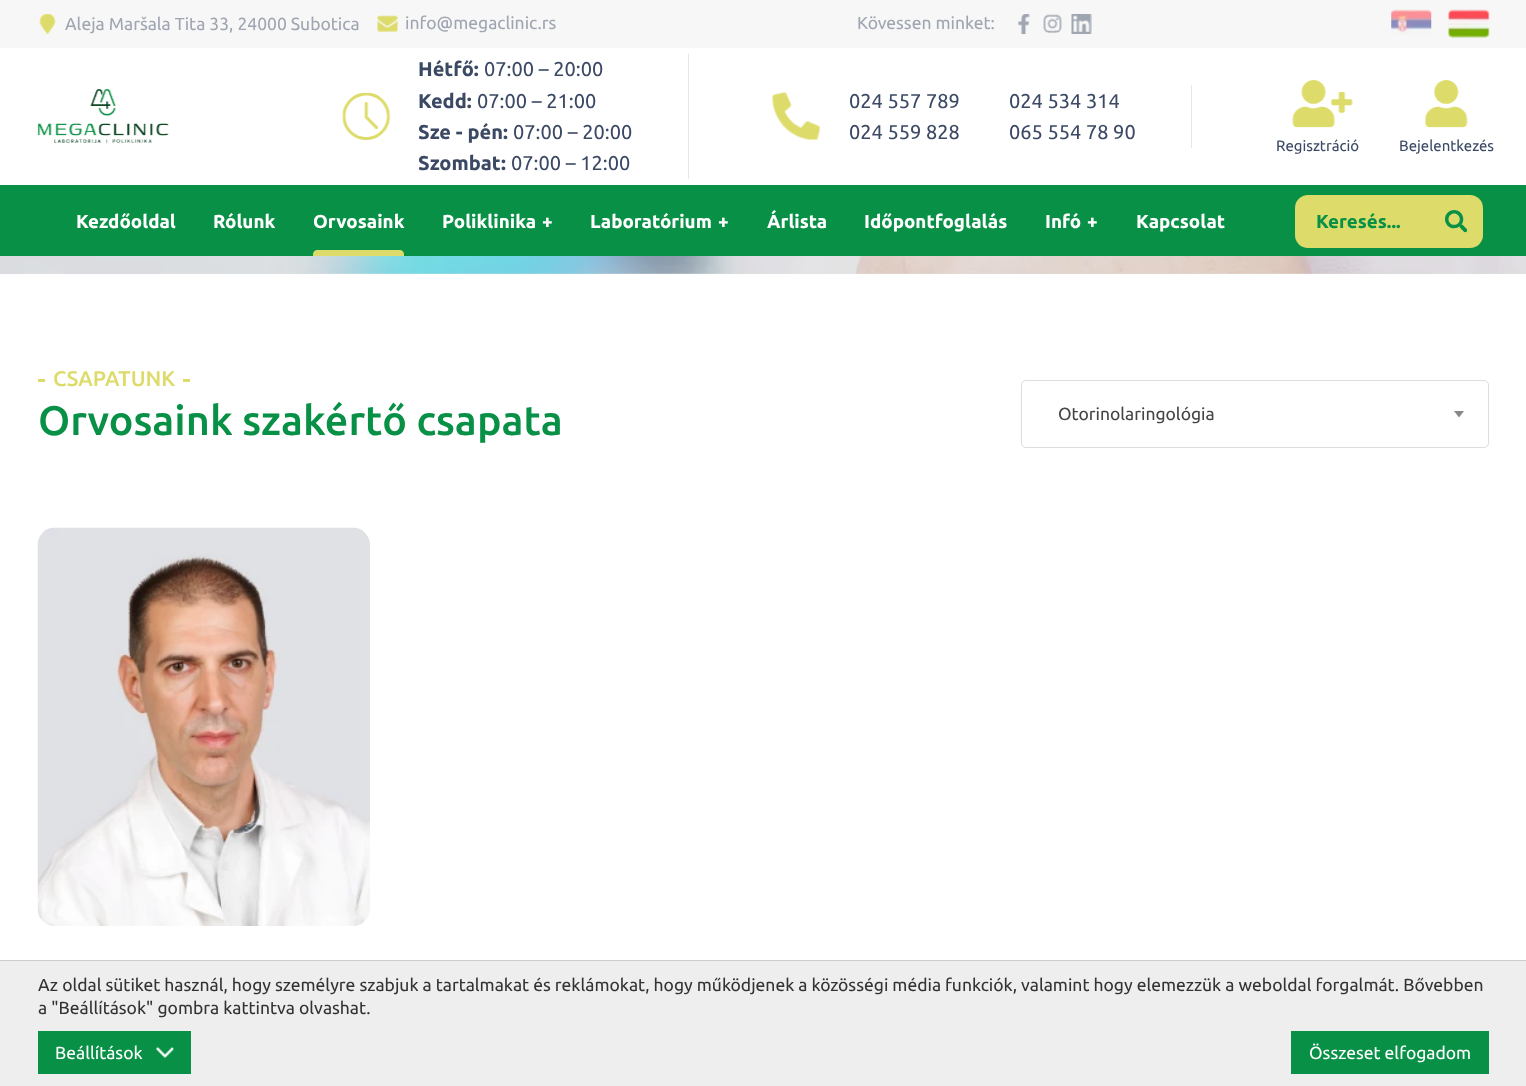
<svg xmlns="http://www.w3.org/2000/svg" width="1526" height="1086">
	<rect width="100%" height="100%" fill="#FFFFFF" />
	<rect x="0" y="256" width="1526" height="18" fill="#E6E6E6" />
	<rect x="0" y="0" width="1526" height="48" fill="#F7F7F7" />
	<image x="39" y="14" width="17" height="20" href="assets/img1.png" />
	<text x="65" y="30" font-family="Ubuntu" font-size="17.5" fill="#9FA6B1">Aleja Maršala Tita 33, 24000 Subotica</text>
	<image x="377" y="15" width="21" height="17" href="assets/img2.png" />
	<g font-family="Ubuntu" font-size="17.5" fill="#9FA6B1">
		<text x="405" y="29">info@megaclinic.rs</text>
		<text x="857" y="29">Kövessen minket:</text>
	</g>
	<image x="1017" y="14" width="13" height="20" href="assets/img3.png" />
	<image x="1043" y="14" width="19" height="19" href="assets/img4.png" />
	<image x="1071" y="14" width="21" height="20" href="assets/img5.png" />
	<image x="1391" y="9" width="41" height="26" href="assets/img6.png" />
	<image x="1448" y="9" width="42" height="29" href="assets/img7.png" />
	<image x="37" y="89" width="132" height="55" href="assets/img8.png" />
	<image x="342" y="92" width="49" height="48" href="assets/img9.png" />
	<text x="418" y="76" font-family="Ubuntu" font-size="20" font-weight="700" fill="#3B4964">Hétfő:</text>
	<text x="484" y="76" font-family="Ubuntu" font-size="20" fill="#3B4964">07:00 – 20:00</text>
	<text x="418" y="108" font-family="Ubuntu" font-size="20" font-weight="700" fill="#3B4964">Kedd:</text>
	<text x="477" y="108" font-family="Ubuntu" font-size="20" fill="#3B4964">07:00 – 21:00</text>
	<text x="418" y="139" font-family="Ubuntu" font-size="20" font-weight="700" fill="#3B4964">Sze - pén:</text>
	<text x="513" y="139" font-family="Ubuntu" font-size="20" fill="#3B4964">07:00 – 20:00</text>
	<text x="418" y="170" font-family="Ubuntu" font-size="20" font-weight="700" fill="#3B4964">Szombat:</text>
	<text x="511" y="170" font-family="Ubuntu" font-size="20" fill="#3B4964">07:00 – 12:00</text>
	<rect x="688" y="54" width="1" height="125" fill="#E6E6E6" />
	<image x="772" y="92" width="49" height="49" href="assets/img10.png" />
	<g font-family="Ubuntu" font-size="20" fill="#3B4964">
		<text x="849" y="108">024 557 789</text>
		<text x="849" y="139">024 559 828</text>
		<text x="1009" y="108">024 534 314</text>
		<text x="1009" y="139">065 554 78 90</text>
	</g>
	<rect x="1191" y="85" width="1" height="63" fill="#E6E6E6" />
	<image x="1292" y="80" width="61" height="48" href="assets/img11.png" />
	<text x="1276" y="151" font-family="Ubuntu" font-size="15" fill="#3B4964">Regisztráció</text>
	<image x="1425" y="80" width="43" height="48" href="assets/img12.png" />
	<text x="1399" y="151" font-family="Ubuntu" font-size="15" fill="#3B4964">Bejelentkezés</text>
	<rect x="0" y="185" width="1526" height="71" fill="#089146" />
	<g font-family="Ubuntu" font-size="18.75" font-weight="700" fill="#FFFFFF">
		<text x="76" y="228">Kezdőoldal</text>
		<text x="213" y="228">Rólunk</text>
		<text x="313" y="228">Orvosaink</text>
	</g>
	<path d="M317 250H400C402 250 404 252 404 254V256H313V254C313 252 315 250 317 250Z" fill="#DDDC6B" />
	<g font-family="Ubuntu" font-size="18.75" font-weight="700" fill="#FFFFFF">
		<text x="442" y="228">Poliklinika</text>
		<text x="542" y="228">+</text>
		<text x="590" y="228">Laboratórium</text>
		<text x="718" y="228">+</text>
		<text x="767" y="228">Árlista</text>
		<text x="864" y="228">Időpontfoglalás</text>
		<text x="1045" y="228">Infó</text>
		<text x="1087" y="228">+</text>
		<text x="1136" y="228">Kapcsolat</text>
	</g>
	<rect x="1295" y="195" width="188" height="53" rx="13" fill="#DDDC6B" />
	<text x="1316" y="228" font-family="Ubuntu" font-size="18.75" font-weight="700" fill="#089146">Keresés...</text>
	<image x="1445" y="210" width="23" height="23" href="assets/img13.png" />
	<image x="0" y="256" width="1526" height="18" href="assets/img14.png" />
	<rect x="38" y="379" width="7" height="3" fill="#DDDC6B" />
	<text x="53" y="386" font-family="Ubuntu" font-size="21.25" font-weight="500" fill="#DDDC6B">CSAPATUNK</text>
	<rect x="183" y="379" width="7" height="3" fill="#DDDC6B" />
	<text x="38" y="435" font-family="Ubuntu" font-size="41.25" font-weight="500" fill="#089146">Orvosaink szakértő csapata</text>
	<rect x="1021.5" y="380.5" width="467" height="67" rx="4.5" fill="none" stroke="#DDDDDD" />
	<text x="1058" y="420" font-family="Ubuntu" font-size="17.5" fill="#444444">Otorinolaringológia</text>
	<path d="M1454 411H1464L1459 417.5Z" fill="#888888" />
	<image x="37" y="527" width="333" height="399" href="assets/img15.png" />
	<rect x="0" y="961" width="1526" height="125" fill="#EEEEEE" />
	<rect x="0" y="960" width="1526" height="1" fill="#CCCCCC" />
	<g font-family="Ubuntu" font-size="17.5" fill="#333333">
		<text x="38" y="991">Az oldal sütiket használ, hogy személyre szabjuk a tartalmakat és reklámokat, hogy működjenek a közösségi média funkciók, valamint hogy elemezzük a weboldal forgalmát. Bővebben</text>
		<text x="38" y="1014">a "Beállítások" gombra kattintva olvashat.</text>
	</g>
	<rect x="38" y="1031" width="153" height="43" fill="#089146" />
	<text x="55" y="1059" font-family="Ubuntu" font-size="17.5" fill="#FFFFFF">Beállítások</text>
	<image x="156" y="1046" width="18" height="12" href="assets/img16.png" />
	<rect x="1291" y="1031" width="198" height="43" fill="#089146" />
	<text x="1309" y="1059" font-family="Ubuntu" font-size="17.5" fill="#FFFFFF">Összeset elfogadom</text>
</svg>
